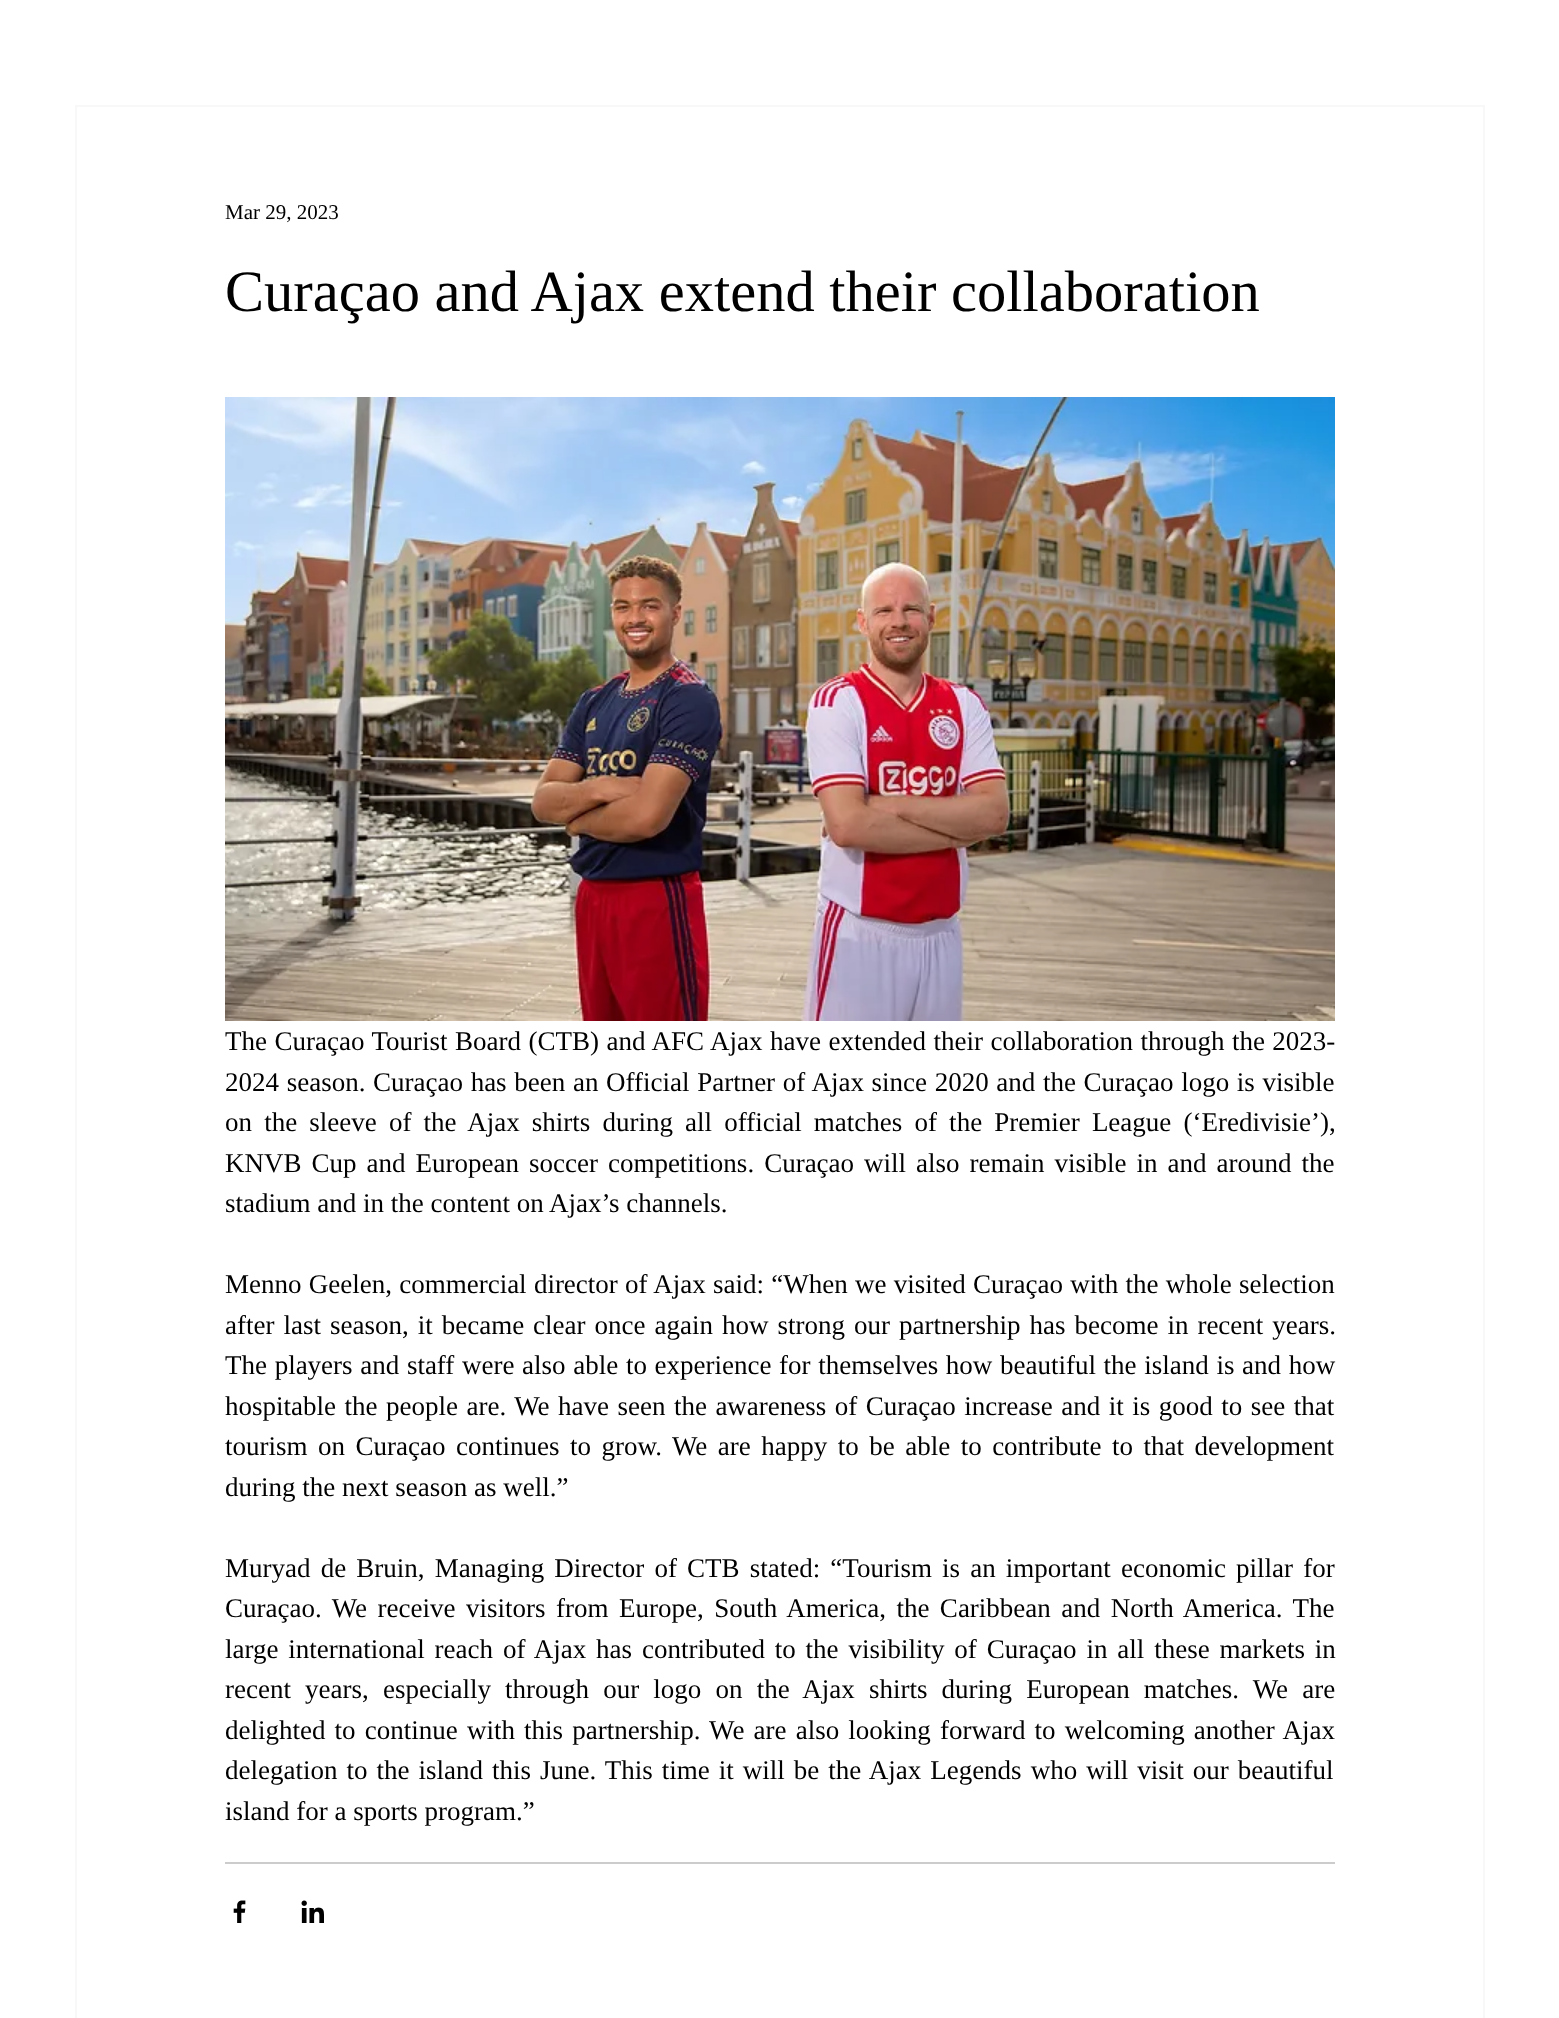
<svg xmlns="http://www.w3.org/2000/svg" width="1559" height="2018">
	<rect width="100%" height="100%" fill="#FFFFFF" />
	<rect x="76" y="106" width="1408" height="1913" fill="none" stroke="#F8F8F8" stroke-width="2" />
	<text x="225" y="219" font-family="Liberation Serif" font-size="21" fill="#000000">Mar 29, 2023</text>
	<text x="225" y="311" font-family="Liberation Serif" font-size="58.5" fill="#000000">Curaçao and Ajax extend their collaboration</text>
	<image x="225" y="397" width="1110" height="624" href="assets/img1.png" />
	<g font-family="Liberation Serif" font-size="27" fill="#000000">
		<text x="225" y="1050" word-spacing="0.75">The Curaçao Tourist Board (CTB) and AFC Ajax have extended their collaboration through the 2023-</text>
		<text x="225" y="1091" word-spacing="0.9">2024 season. Curaçao has been an Official Partner of Ajax since 2020 and the Curaçao logo is visible</text>
		<text x="225" y="1131" word-spacing="5.4">on the sleeve of the Ajax shirts during all official matches of the Premier League (‘Eredivisie’),</text>
		<text x="225" y="1172" word-spacing="3.25">KNVB Cup and European soccer competitions. Curaçao will also remain visible in and around the</text>
		<text x="225" y="1212">stadium and in the content on Ajax’s channels.</text>
		<text x="225" y="1293" word-spacing="0.5">Menno Geelen, commercial director of Ajax said: “When we visited Curaçao with the whole selection</text>
		<text x="225" y="1334" word-spacing="2.25">after last season, it became clear once again how strong our partnership has become in recent years.</text>
		<text x="225" y="1374" word-spacing="0.9">The players and staff were also able to experience for themselves how beautiful the island is and how</text>
		<text x="225" y="1415" word-spacing="1.75">hospitable the people are. We have seen the awareness of Curaçao increase and it is good to see that</text>
		<text x="225" y="1455" word-spacing="3.75">tourism on Curaçao continues to grow. We are happy to be able to contribute to that development</text>
		<text x="225" y="1496">during the next season as well.”</text>
		<text x="225" y="1577" word-spacing="3.4">Muryad de Bruin, Managing Director of CTB stated: “Tourism is an important economic pillar for</text>
		<text x="225" y="1617" word-spacing="3.75">Curaçao. We receive visitors from Europe, South America, the Caribbean and North America. The</text>
		<text x="225" y="1658" word-spacing="3.1">large international reach of Ajax has contributed to the visibility of Curaçao in all these markets in</text>
		<text x="225" y="1698" word-spacing="7.4">recent years, especially through our logo on the Ajax shirts during European matches. We are</text>
		<text x="225" y="1739" word-spacing="2.4">delighted to continue with this partnership. We are also looking forward to welcoming another Ajax</text>
		<text x="225" y="1779" word-spacing="2.25">delegation to the island this June. This time it will be the Ajax Legends who will visit our beautiful</text>
		<text x="225" y="1820">island for a sports program.”</text>
	</g>
	<rect x="225" y="1862" width="1110" height="2" fill="#CCCCCC" />
	<image x="233" y="1900" width="13" height="23" href="assets/img2.png" />
	<image x="301" y="1900" width="23" height="23" href="assets/img3.png" />
</svg>
